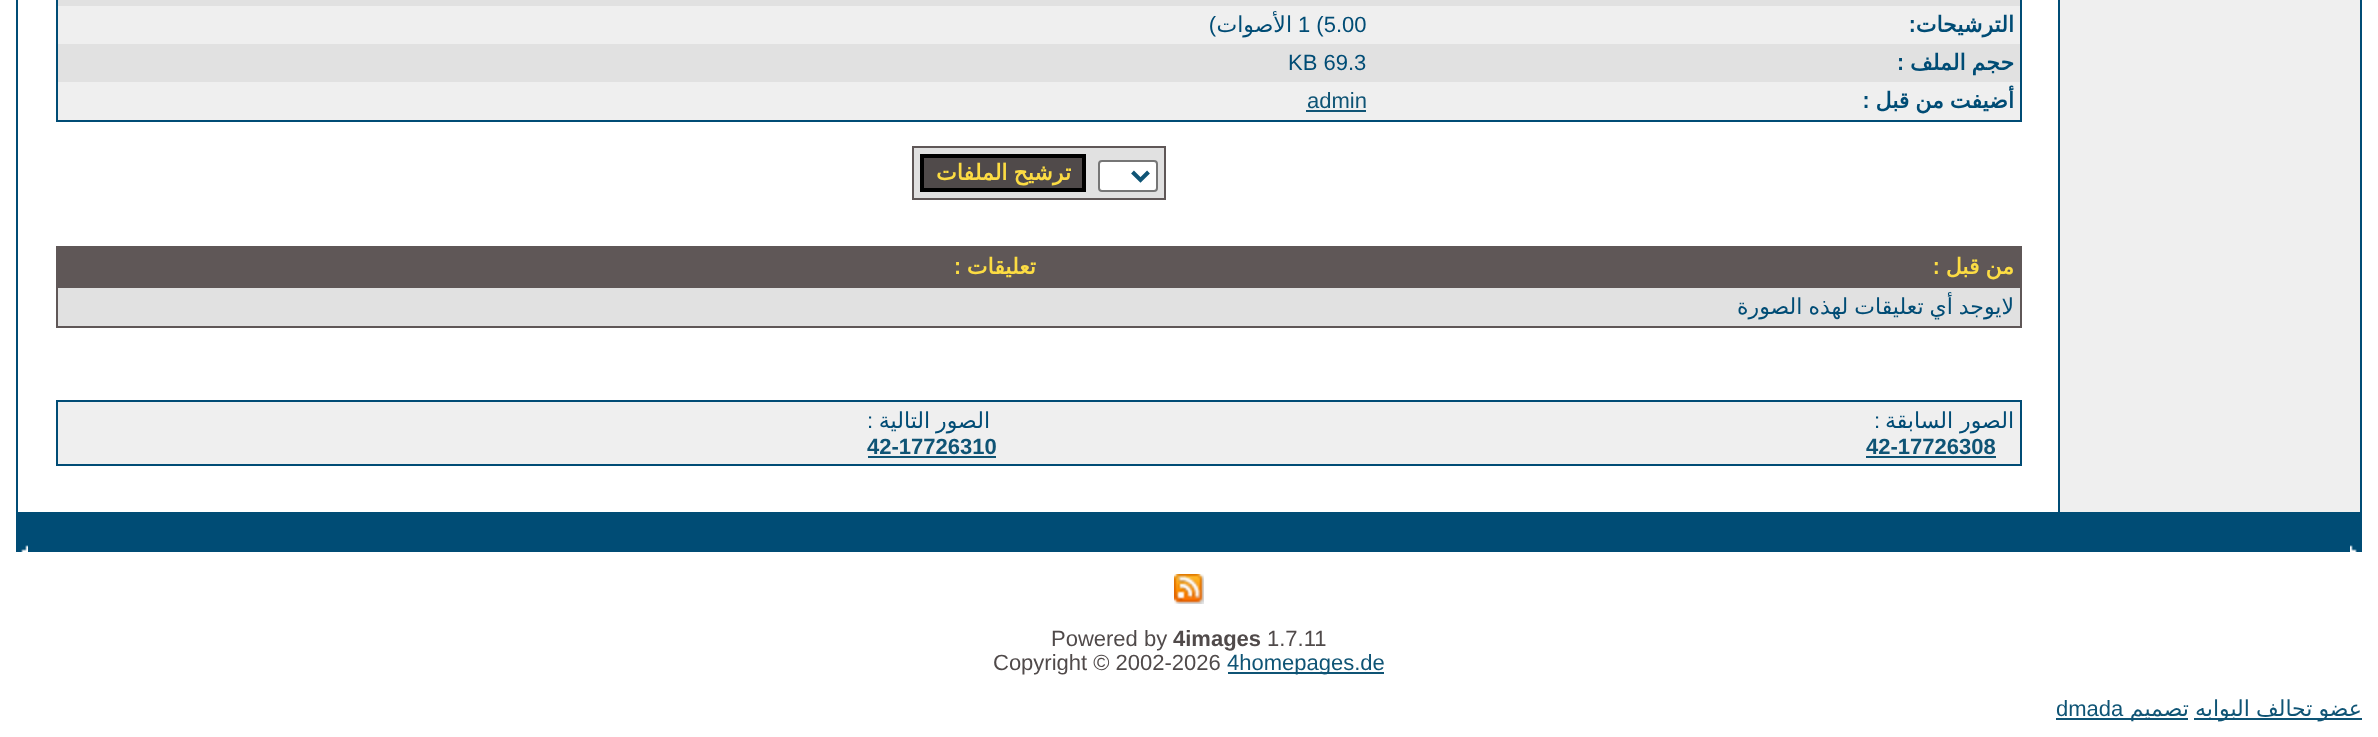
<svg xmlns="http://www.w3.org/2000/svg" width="2378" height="737">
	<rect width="100%" height="100%" fill="#FFFFFF" />
	<rect x="16" y="0" width="2346" height="552" fill="#004C75" />
	<rect x="18" y="0" width="2040" height="512" fill="#FFFFFF" />
	<rect x="2060" y="0" width="300" height="512" fill="#EFEFEF" />
	<rect x="56" y="0" width="1966" height="122" fill="#004C75" />
	<rect x="58" y="0" width="1962" height="6" fill="#E1E1E1" />
	<rect x="58" y="6" width="1962" height="38" fill="#EFEFEF" />
	<text x="2014" y="32" font-family="DejaVu Sans" font-size="22" font-weight="700" direction="rtl" fill="#004C75">الترشيحات:</text>
	<text x="1298" y="32" font-family="Liberation Sans" font-size="22" fill="#004C75">1 (5.00</text>
	<text x="1292" y="32" font-family="DejaVu Sans" font-size="22" direction="rtl" fill="#004C75">الأصوات</text>
	<text x="1216" y="32" font-family="Liberation Sans" font-size="22" direction="rtl" fill="#004C75">)</text>
	<rect x="58" y="44" width="1962" height="38" fill="#E1E1E1" />
	<text x="2014" y="70" word-spacing="-1" font-family="DejaVu Sans" font-size="22" font-weight="700" direction="rtl" fill="#004C75">حجم الملف :</text>
	<text x="1288" y="70" font-family="Liberation Sans" font-size="22" fill="#004C75">KB 69.3</text>
	<rect x="58" y="82" width="1962" height="38" fill="#EFEFEF" />
	<text x="2014" y="108" word-spacing="-1" font-family="DejaVu Sans" font-size="22" font-weight="700" direction="rtl" fill="#004C75">أضيفت من قبل :</text>
	<text x="1307" y="108" font-family="Liberation Sans" font-size="22" fill="#0F5475">admin</text>
	<rect x="1306" y="110" width="60" height="2" fill="#0F5475" />
	<rect x="912" y="146" width="254" height="54" fill="#5F5757" />
	<rect x="914" y="148" width="250" height="50" fill="#E1E1E1" />
	<rect x="1099" y="161" width="58" height="30" rx="3" fill="#FFFFFF" stroke="#767676" stroke-width="2" />
	<path d="M1132.5 172L1140.5 180L1148.5 172" fill="none" stroke="#0F5475" stroke-width="4" />
	<rect x="922" y="156" width="162" height="34" fill="#504A4A" stroke="#000000" stroke-width="4" />
	<text x="1071" y="180" word-spacing="-1" font-family="DejaVu Sans" font-size="22" font-weight="700" direction="rtl" fill="#FCDC43">ترشيح الملفات</text>
	<rect x="56" y="246" width="1966" height="82" fill="#5F5757" />
	<g font-family="DejaVu Sans" font-size="22" font-weight="700" direction="rtl" fill="#FCDC43">
		<text x="2014" y="274" word-spacing="-1">من قبل :</text>
		<text x="1036" y="274" word-spacing="-1">تعليقات :</text>
	</g>
	<rect x="58" y="288" width="1962" height="38" fill="#E1E1E1" />
	<text x="2014" y="314" word-spacing="-1" font-family="DejaVu Sans" font-size="22" direction="rtl" fill="#004C75">لايوجد أي تعليقات لهذه الصورة</text>
	<rect x="56" y="400" width="1966" height="66" fill="#004C75" />
	<rect x="58" y="402" width="1962" height="62" fill="#EFEFEF" />
	<text x="2014" y="428" font-family="DejaVu Sans" font-size="22" direction="rtl" fill="#004C75">الصور السابقة</text>
	<text x="1880" y="428" font-family="Liberation Sans" font-size="22" direction="rtl" fill="#004C75">:</text>
	<text x="1866" y="454" font-family="Liberation Sans" font-size="22" font-weight="700" fill="#0F5475">42-17726308</text>
	<rect x="1866" y="456" width="130" height="2" fill="#0F5475" />
	<text x="990" y="428" word-spacing="-1" font-family="DejaVu Sans" font-size="22" direction="rtl" fill="#004C75">الصور التالية</text>
	<text x="873" y="428" font-family="Liberation Sans" font-size="22" direction="rtl" fill="#004C75">:</text>
	<text x="867" y="454" font-family="Liberation Sans" font-size="22" font-weight="700" fill="#0F5475">42-17726310</text>
	<rect x="868" y="456" width="128" height="2" fill="#0F5475" />
	<image x="2350" y="545" width="7" height="7" href="assets/img1.png" />
	<image x="21" y="545" width="7" height="7" href="assets/img2.png" />
	<image x="1174" y="574" width="30" height="30" href="assets/img3.png" />
	<text x="1267" y="646" font-family="Liberation Sans" font-size="22" fill="#504A4A">1.7.11</text>
	<text x="1173" y="646" font-family="Liberation Sans" font-size="22" font-weight="700" fill="#504A4A">4images</text>
	<text x="1051" y="646" font-family="Liberation Sans" font-size="22" fill="#504A4A">Powered by</text>
	<rect x="1228" y="672" width="156" height="2" fill="#0F5475" />
	<text x="1227" y="670" font-family="Liberation Sans" font-size="22" fill="#0F5475">4homepages.de</text>
	<text x="993" y="670" font-family="Liberation Sans" font-size="22" fill="#504A4A">Copyright © 2002-2026</text>
	<rect x="2194" y="718" width="168" height="2" fill="#0F5475" />
	<text x="2362" y="716" word-spacing="-1" font-family="DejaVu Sans" font-size="22" direction="rtl" fill="#0F5475">عضو تحالف البوابه</text>
	<rect x="2056" y="718" width="132" height="2" fill="#0F5475" />
	<text x="2189" y="716" font-family="DejaVu Sans" font-size="22" direction="rtl" fill="#0F5475">تصميم</text>
	<text x="2056" y="716" font-family="Liberation Sans" font-size="22" fill="#0F5475">dmada</text>
</svg>
